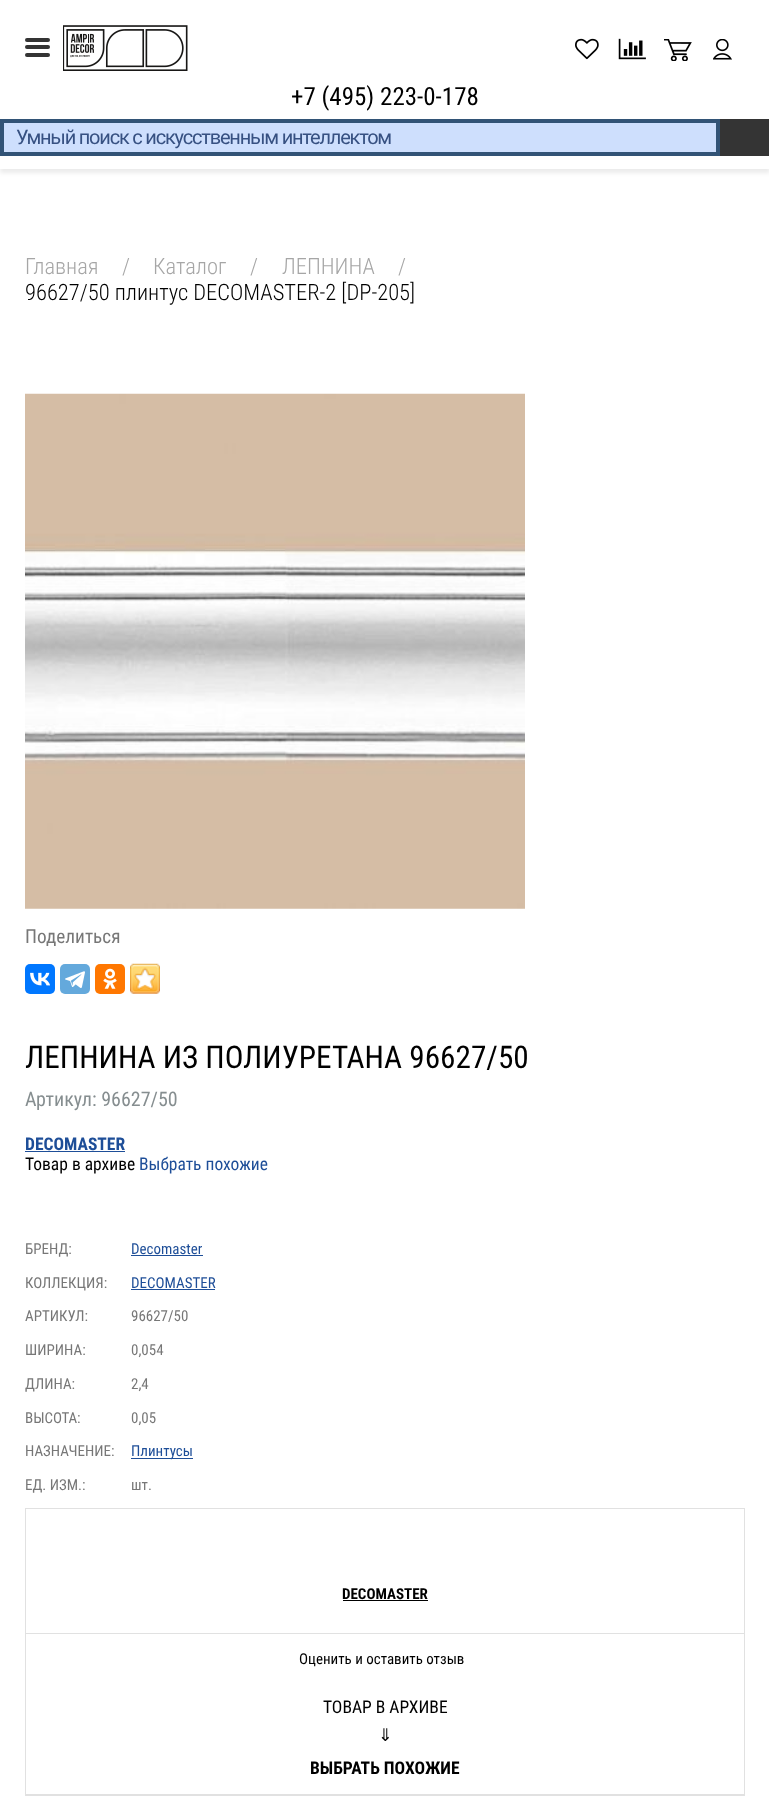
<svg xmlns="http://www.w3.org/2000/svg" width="769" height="1819">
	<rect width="100%" height="100%" fill="#FFFFFF" />
	<rect x="25" y="38" width="25" height="4" rx="2" fill="#343434" />
	<rect x="25" y="45" width="25" height="4" rx="2" fill="#343434" />
	<rect x="25" y="53" width="25" height="4" rx="2" fill="#343434" />
	<image x="63" y="25" width="125" height="46" href="assets/img1.png" />
	<image x="575" y="38" width="24" height="22" href="assets/img2.png" />
	<image x="618" y="38" width="28" height="22" href="assets/img3.png" />
	<image x="664" y="39" width="28" height="22" href="assets/img4.png" />
	<image x="713" y="39" width="19" height="21" href="assets/img5.png" />
	<text x="291" y="105" font-family="Roboto Condensed" font-size="25" fill="#000000">+7 (495) 223-0-178</text>
	<rect x="0" y="123" width="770" height="50" fill="#000000" fill-opacity="0.08" filter="blur(2px)" />
	<rect x="0" y="156" width="769" height="13" fill="#FFFFFF" />
	<rect x="0.5" y="119.5" width="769" height="36" fill="none" stroke="#325376" />
	<rect x="2.5" y="121.5" width="715" height="32" fill="#CEDFFD" stroke="#325376" stroke-width="3" />
	<text x="16" y="144" font-family="Roboto" font-size="20" letter-spacing="-1.2" fill="#375182">Умный поиск с искусственным интеллектом</text>
	<rect x="720" y="119" width="49" height="37" fill="#343434" />
	<rect x="719" y="119" width="1" height="37" fill="#325376" />
	<g font-family="Roboto Condensed" font-size="22.5" font-weight="300" fill="#A6A6A6">
		<text x="25" y="274">Главная</text>
		<text x="122" y="274">/</text>
		<text x="153" y="274">Каталог</text>
		<text x="250" y="274">/</text>
		<text x="282" y="274">ЛЕПНИНА</text>
		<text x="398" y="274">/</text>
	</g>
	<text x="25" y="300" font-family="Roboto Condensed" font-size="22.5" font-weight="300" fill="#000000">96627/50 плинтус DECOMASTER-2 [DP-205]</text>
	<image x="25" y="393" width="500" height="516" href="assets/img6.png" />
	<text x="25" y="943" font-family="Roboto Condensed" font-size="19.25" fill="#777777">Поделиться</text>
	<rect x="25" y="964" width="30" height="30" rx="5" fill="#0077FF" />
	<image x="30" y="972" width="20" height="14" href="assets/img7.png" />
	<rect x="60" y="964" width="30" height="30" rx="5" fill="#64A9DC" />
	<image x="65" y="971" width="20" height="17" href="assets/img8.png" />
	<rect x="95" y="964" width="30" height="30" rx="5" fill="#FF7700" />
	<image x="103" y="968" width="14" height="21" href="assets/img9.png" />
	<image x="130" y="963" width="30" height="31" href="assets/img10.png" />
	<text x="25" y="1068" font-family="Roboto Condensed" font-size="31.25" fill="#000000">ЛЕПНИНА ИЗ ПОЛИУРЕТАНА 96627/50</text>
	<text x="25" y="1106" font-family="Roboto Condensed" font-size="20" fill="#868E90">Артикул: 96627/50</text>
	<text x="25" y="1150" font-family="Roboto Condensed" font-size="17.5" font-weight="700" fill="#1E4E98">DECOMASTER</text>
	<rect x="25" y="1151" width="100" height="1" fill="#1E4E98" />
	<text x="25" y="1170" font-family="'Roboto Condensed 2'" font-size="17.5" fill="#000000">Товар в архиве</text>
	<text x="139" y="1170" font-family="'Roboto Condensed 2'" font-size="17.5" fill="#1E4E98">Выбрать похожие</text>
	<text x="25" y="1254" font-family="Roboto Condensed" font-size="15" fill="#777777">БРЕНД:</text>
	<text x="131" y="1254" font-family="Roboto Condensed" font-size="15" fill="#1E4E98">Decomaster</text>
	<rect x="131" y="1255" width="72" height="1" fill="#1E4E98" />
	<text x="25" y="1288" font-family="Roboto Condensed" font-size="15" fill="#777777">КОЛЛЕКЦИЯ:</text>
	<text x="131" y="1288" font-family="Roboto Condensed" font-size="15" fill="#1E4E98">DECOMASTER</text>
	<rect x="131" y="1289" width="84" height="1" fill="#1E4E98" />
	<g font-family="Roboto Condensed" font-size="15" fill="#777777">
		<text x="25" y="1321">АРТИКУЛ:</text>
		<text x="131" y="1321">96627/50</text>
		<text x="25" y="1355">ШИРИНА:</text>
		<text x="131" y="1355">0,054</text>
		<text x="25" y="1389">ДЛИНА:</text>
		<text x="131" y="1389">2,4</text>
		<text x="25" y="1423">ВЫСОТА:</text>
		<text x="131" y="1423">0,05</text>
		<text x="25" y="1456">НАЗНАЧЕНИЕ:</text>
	</g>
	<rect x="131" y="1458" width="62" height="1" fill="#1E4E98" />
	<text x="131" y="1456" font-family="Roboto Condensed" font-size="15" fill="#1E4E98">Плинтусы</text>
	<g font-family="Roboto Condensed" font-size="15" fill="#777777">
		<text x="25" y="1490">ЕД. ИЗМ.:</text>
		<text x="131" y="1490">шт.</text>
	</g>
	<rect x="25.5" y="1508.5" width="719" height="287" fill="none" stroke="#E1E1E1" />
	<rect x="26" y="1633" width="718" height="1" fill="#E1E1E1" />
	<text x="342" y="1599" font-family="Roboto Condensed" font-size="15" font-weight="700" fill="#000000">DECOMASTER</text>
	<rect x="343" y="1600" width="85" height="1" fill="#000000" />
	<text x="299" y="1664" font-family="Roboto Condensed" font-size="15" fill="#000000">Оценить и оставить отзыв</text>
	<rect x="26" y="1794" width="718" height="1" fill="#E1E1E1" />
	<text x="323" y="1713" font-family="'Roboto Condensed 2'" font-size="17.5" fill="#000000">ТОВАР В АРХИВЕ</text>
	<text x="378" y="1741" font-family="DejaVu Sans" font-size="17.5" fill="#000000">⇓</text>
	<text x="310" y="1774" font-family="Roboto Condensed" font-size="17.5" font-weight="700" fill="#000000">ВЫБРАТЬ ПОХОЖИЕ</text>
</svg>
